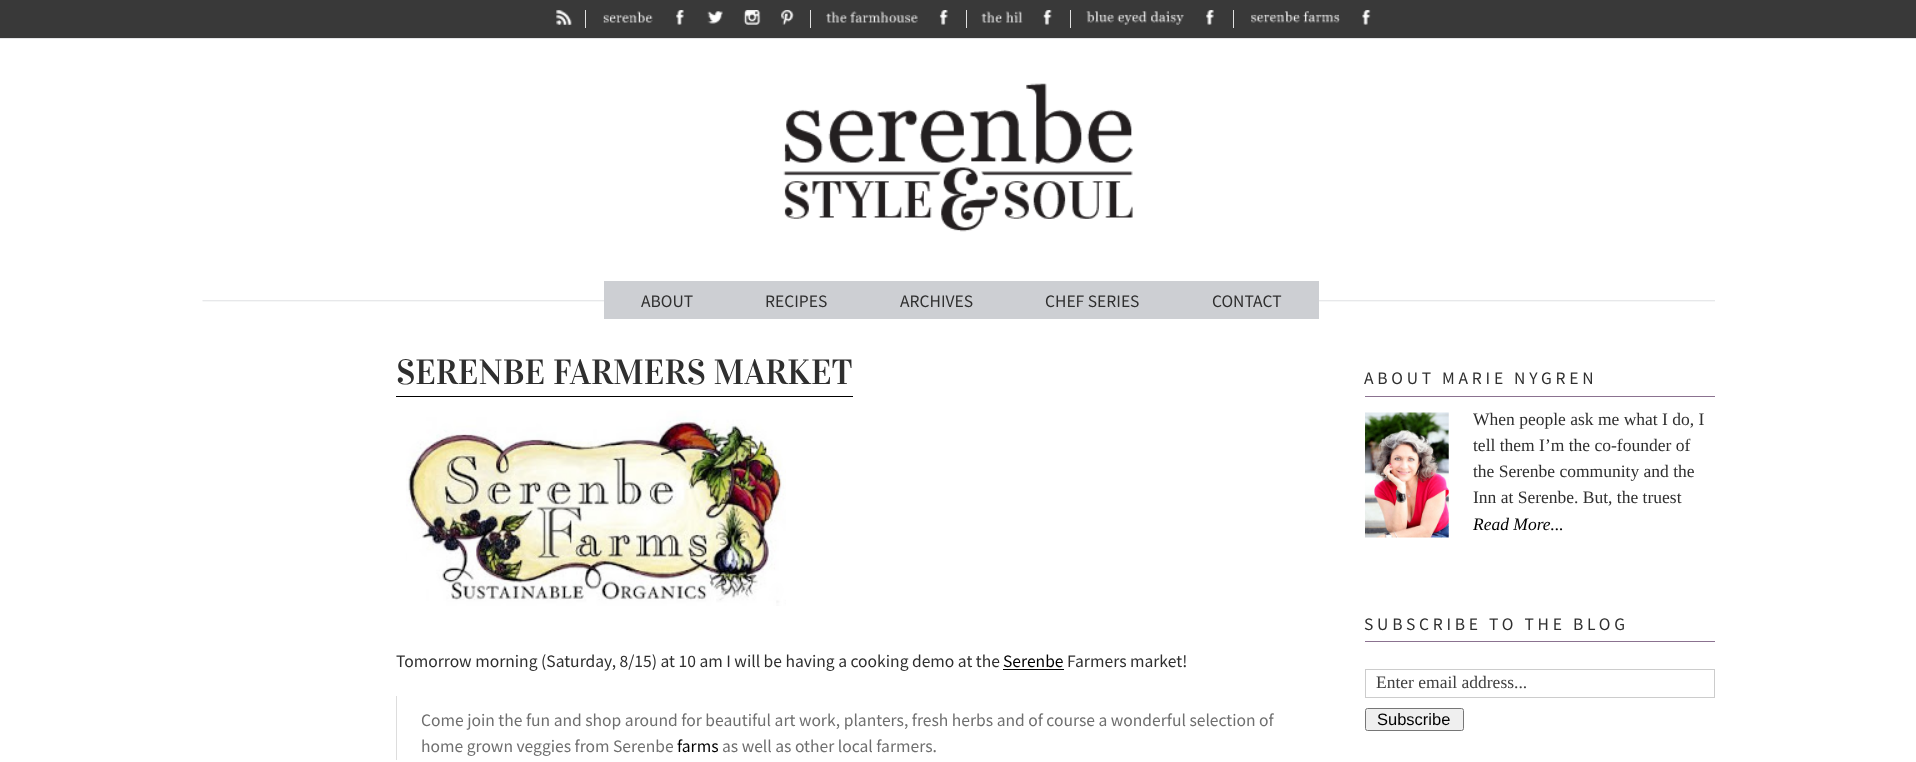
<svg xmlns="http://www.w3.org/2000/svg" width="1916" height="762">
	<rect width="100%" height="100%" fill="#FFFFFF" />
	<rect x="0" y="0" width="1916" height="38" fill="#393939" />
	<rect x="0" y="38" width="1916" height="1" fill="#E4E5E7" />
	<rect x="585" y="10" width="1" height="18" fill="#E0E0E0" />
	<image x="556" y="10" width="16" height="15" href="assets/img1.png" />
	<image x="603" y="11" width="50" height="12" href="assets/img2.png" />
	<image x="676" y="10" width="8" height="15" href="assets/img3.png" />
	<image x="707" y="11" width="16" height="13" href="assets/img4.png" />
	<image x="743" y="10" width="18" height="15" href="assets/img5.png" />
	<rect x="810" y="10" width="1" height="18" fill="#E0E0E0" />
	<image x="781" y="10" width="13" height="15" href="assets/img6.png" />
	<image x="826" y="11" width="92" height="12" href="assets/img7.png" />
	<rect x="966" y="10" width="1" height="18" fill="#E0E0E0" />
	<image x="939" y="10" width="9" height="15" href="assets/img8.png" />
	<image x="981" y="11" width="42" height="12" href="assets/img9.png" />
	<rect x="1070" y="10" width="1" height="18" fill="#E0E0E0" />
	<image x="1043" y="10" width="9" height="15" href="assets/img10.png" />
	<image x="1086" y="11" width="98" height="14" href="assets/img11.png" />
	<rect x="1233" y="10" width="1" height="18" fill="#E0E0E0" />
	<image x="1206" y="10" width="8" height="15" href="assets/img12.png" />
	<image x="1251" y="11" width="89" height="12" href="assets/img13.png" />
	<image x="1362" y="10" width="9" height="15" href="assets/img14.png" />
	<image x="783" y="83" width="350" height="149" href="assets/img15.png" />
	<image x="202" y="300" width="1513" height="2" href="assets/img16.png" />
	<rect x="604" y="281" width="715" height="38" fill="#CDCFD3" />
	<g font-family="Source Sans Pro" font-size="17.5" fill="#2F2F2F">
		<text x="641" y="307">ABOUT</text>
		<text x="765" y="307">RECIPES</text>
		<text x="900" y="307">ARCHIVES</text>
		<text x="1045" y="307">CHEF SERIES</text>
		<text x="1212" y="307">CONTACT</text>
	</g>
	<rect x="396" y="396" width="457" height="1" fill="#000000" />
	<text x="396" y="384" font-family="Vidaloka" font-size="35" fill="#2F2F2F">SERENBE FARMERS MARKET</text>
	<image x="406" y="410" width="380" height="196" href="assets/img17.png" />
	<text x="396" y="667" font-family="Source Sans Pro" font-size="17.5" fill="#2F2F2F">Tomorrow morning (Saturday, 8/15) at 10 am I will be having a cooking demo at the</text>
	<text x="1003" y="667" font-family="Source Sans Pro" font-size="17.5" fill="#000000">Serenbe</text>
	<rect x="1003" y="669" width="61" height="1" fill="#000000" />
	<text x="1067" y="667" font-family="Source Sans Pro" font-size="17.5" fill="#2F2F2F">Farmers market!</text>
	<rect x="396" y="696" width="1" height="64" fill="#DDDDDD" />
	<g font-family="Source Sans Pro" font-size="17.5" fill="#6F6F6F">
		<text x="421" y="726">Come join the fun and shop around for beautiful art work, planters, fresh herbs and of course a wonderful selection of</text>
		<text x="421" y="752">home grown veggies from Serenbe</text>
	</g>
	<text x="677" y="752" font-family="Source Sans Pro" font-size="17.5" fill="#000000">farms</text>
	<text x="722" y="752" font-family="Source Sans Pro" font-size="17.5" fill="#6F6F6F">as well as other local farmers.</text>
	<rect x="1365" y="396" width="350" height="1" fill="#8B7290" />
	<text x="1364" y="384" font-family="Source Sans Pro" font-size="17.5" letter-spacing="3.75" fill="#2F2F2F">ABOUT MARIE NYGREN</text>
	<image x="1365" y="412" width="84" height="126" href="assets/img18.png" />
	<g font-family="Liberation Serif" font-size="17.5" fill="#2F2F2F">
		<text x="1473" y="425">When people ask me what I do, I</text>
		<text x="1473" y="451">tell them I’m the co-founder of</text>
		<text x="1473" y="477">the Serenbe community and the</text>
		<text x="1473" y="503">Inn at Serenbe. But, the truest</text>
	</g>
	<text x="1473" y="530" font-family="Liberation Serif" font-size="17.5" font-style="italic" fill="#000000">Read More...</text>
	<rect x="1365" y="641" width="350" height="1" fill="#8B7290" />
	<text x="1364" y="630" font-family="Source Sans Pro" font-size="17.5" letter-spacing="3.75" fill="#2F2F2F">SUBSCRIBE TO THE BLOG</text>
	<rect x="1365.5" y="669.5" width="349" height="28" fill="none" stroke="#CCCCCC" />
	<text x="1376" y="688" font-family="Liberation Serif" font-size="17.5" fill="#404040">Enter email address...</text>
	<rect x="1365.5" y="708.5" width="98" height="22" rx="2" fill="#EFEFEF" stroke="#767676" />
	<text x="1377" y="725" font-family="Liberation Sans" font-size="16.5" fill="#000000">Subscribe</text>
</svg>
